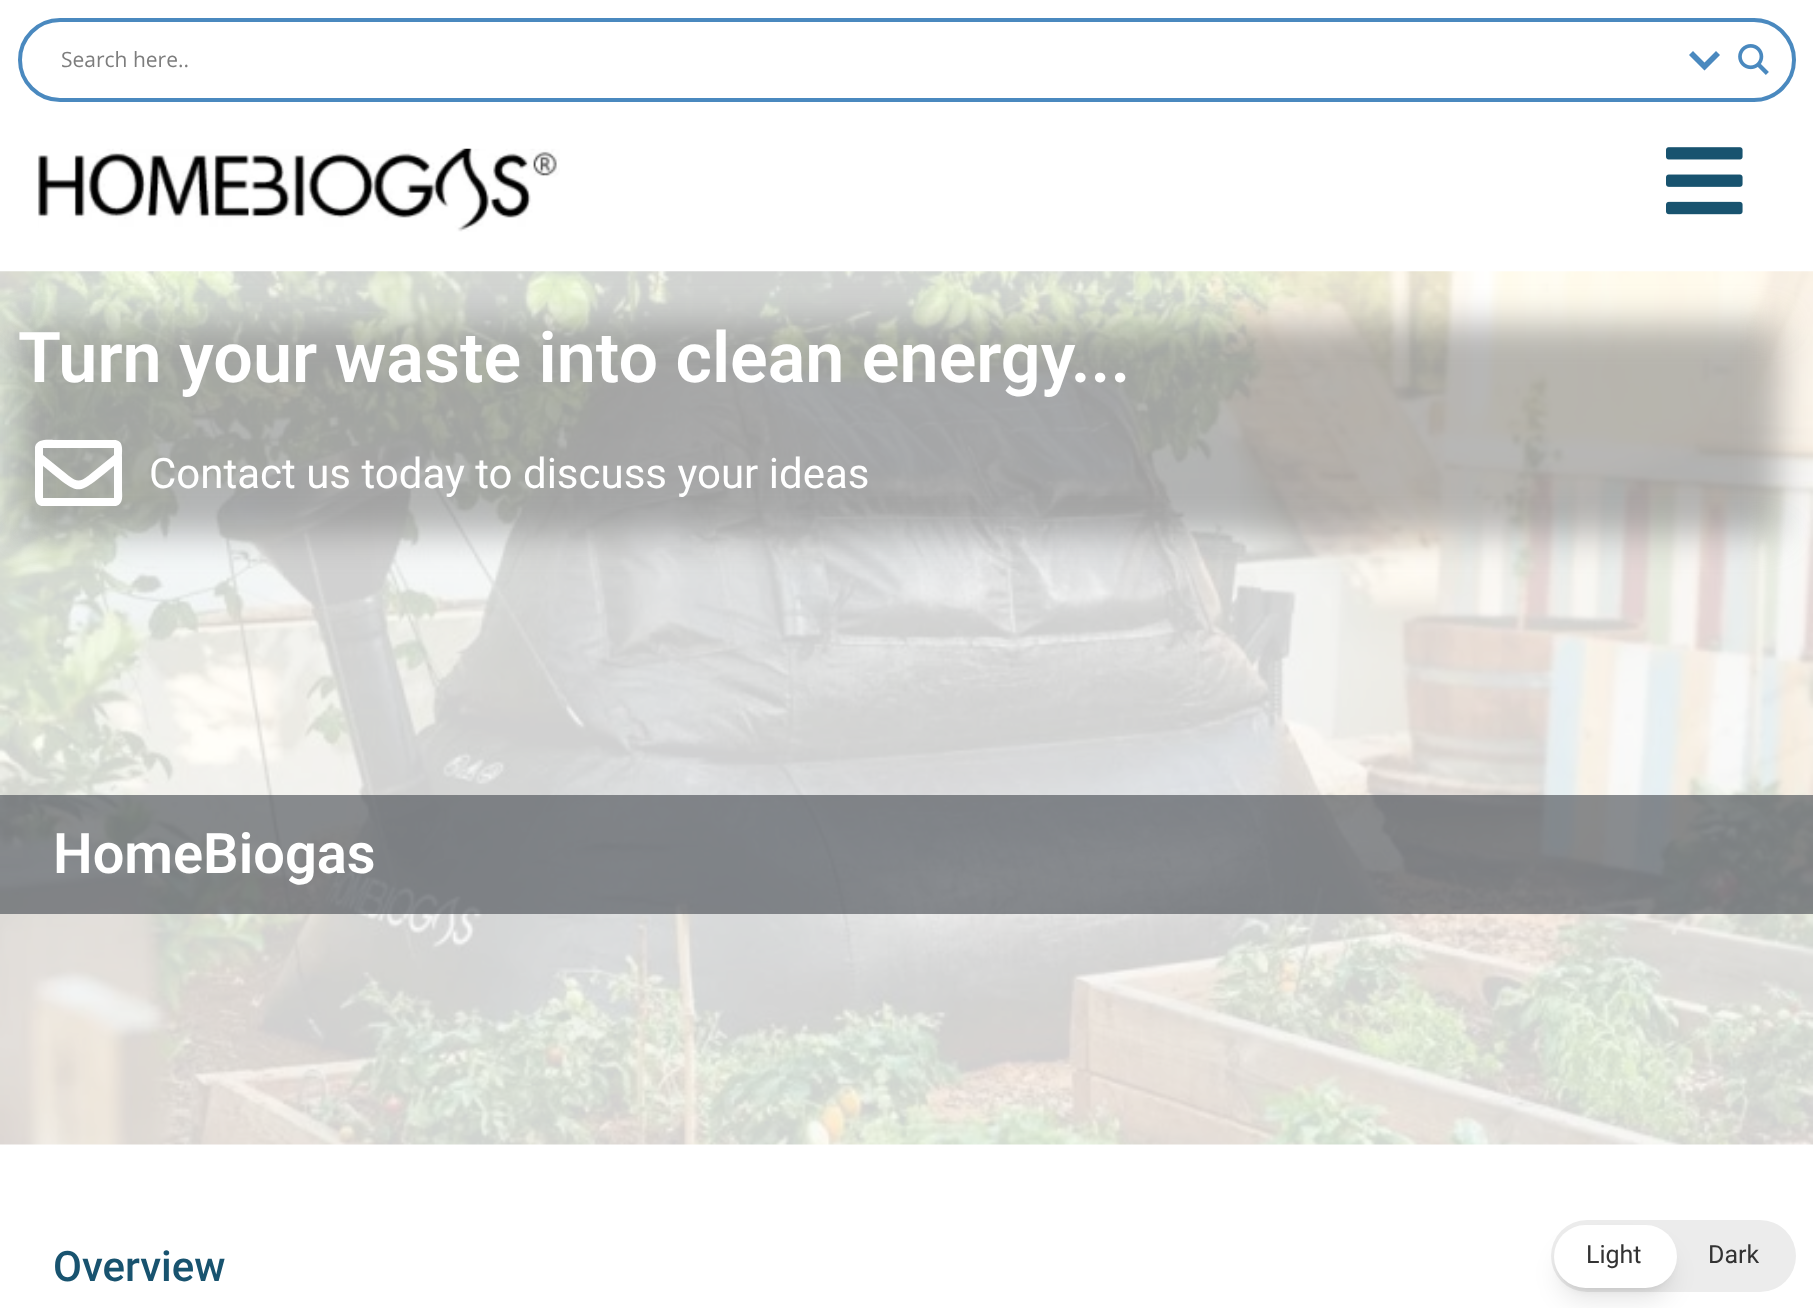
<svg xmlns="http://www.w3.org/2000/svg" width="1813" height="1308">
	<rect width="100%" height="100%" fill="#FFFFFF" />
	<rect x="20" y="20" width="1774" height="80" rx="40" fill="none" stroke="#4A89BF" stroke-width="4" />
	<text x="61" y="67" font-family="Open Sans" font-size="21" fill="#7D7D7D">Search here..</text>
	<path d="M1716 51L1720 55L1704.5 70.5L1689 55L1693 51L1704.5 62.5Z" fill="#4A89BF" />
	<image x="1738" y="44" width="31" height="31" href="assets/img1.png" />
	<image x="38" y="148" width="522" height="84" href="assets/img2.png" />
	<image x="1666" y="147" width="77" height="68" href="assets/img3.png" />
	<image x="0" y="271" width="1813" height="874" href="assets/img4.png" />
	<rect x="18" y="324" width="1760" height="210" fill="#7A7A7A" fill-opacity="0.54" filter="blur(17.5px)" />
	<text x="18" y="382" font-family="Roboto" font-size="70" font-weight="600" fill="#FFFFFF">Turn your waste into clean energy...</text>
	<path d="M114 440C124 440 122 450 122 457V489C122 495 124 504 116 506H43C34 506 35 496 35 489V447C37 438 49 440 55 440ZM114 448H43V455L69 476C77 482 80 482 88 476L114 455ZM43 498H114V466C75 497 82 497 43 466Z" fill="#FFFFFF" />
	<text x="149" y="488" font-family="Roboto" font-size="42" fill="#FFFFFF">Contact us today to discuss your ideas</text>
	<rect x="0" y="795" width="1813" height="119" fill="#54595F" fill-opacity="0.68" />
	<text x="53" y="873" font-family="Roboto" font-size="56" font-weight="600" fill="#FFFFFF">HomeBiogas</text>
	<text x="53" y="1281" font-family="Roboto" font-size="42" font-weight="500" fill="#18536F">Overview</text>
	<rect x="1551" y="1220" width="245" height="72" rx="36" fill="#ECECEC" />
	<rect x="1561" y="1239" width="109" height="49" rx="24.5" fill="#000000" fill-opacity="0.1" filter="blur(5px)" />
	<rect x="1559" y="1248" width="112" height="52" rx="26" fill="#000000" fill-opacity="0.1" filter="blur(13px)" />
	<rect x="1554" y="1225" width="123" height="63" rx="31.5" fill="#FFFFFF" />
	<g font-family="Roboto" font-size="25" fill="#333333">
		<text x="1586" y="1263">Light</text>
		<text x="1708" y="1263">Dark</text>
	</g>
</svg>
